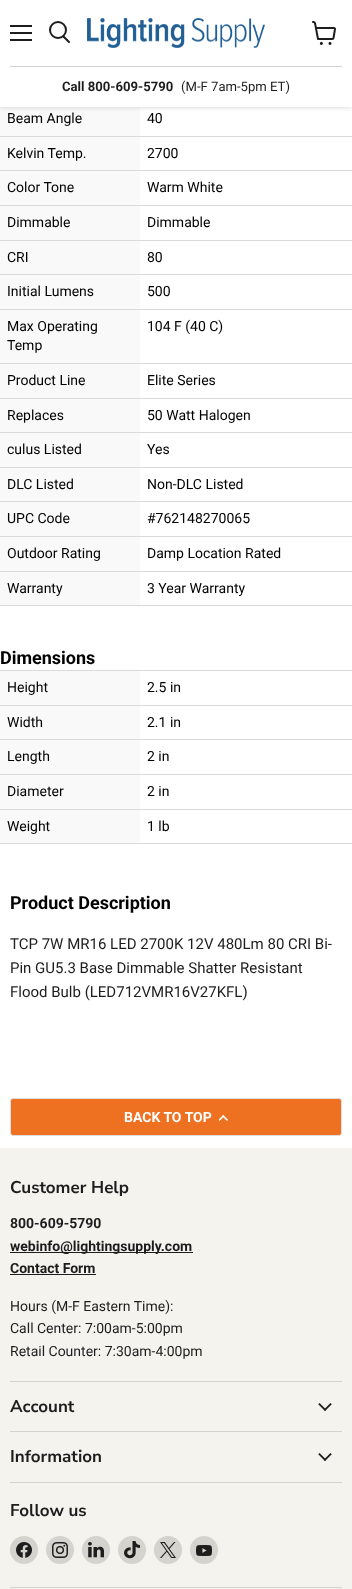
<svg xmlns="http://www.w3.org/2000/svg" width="352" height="1589">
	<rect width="100%" height="100%" fill="#FFFFFF" />
	<rect x="0" y="810" width="140" height="33" fill="#F9F9F9" />
	<rect x="0" y="775" width="140" height="34" fill="#F9F9F9" />
	<rect x="0" y="740" width="140" height="34" fill="#F9F9F9" />
	<rect x="0" y="706" width="140" height="33" fill="#F9F9F9" />
	<rect x="0" y="572" width="140" height="33" fill="#F9F9F9" />
	<rect x="0" y="537" width="140" height="34" fill="#F9F9F9" />
	<rect x="0" y="502" width="140" height="34" fill="#F9F9F9" />
	<rect x="0" y="468" width="140" height="33" fill="#F9F9F9" />
	<rect x="0" y="433" width="140" height="34" fill="#F9F9F9" />
	<rect x="0" y="399" width="140" height="33" fill="#F9F9F9" />
	<rect x="0" y="364" width="140" height="34" fill="#F9F9F9" />
	<rect x="0" y="310" width="140" height="53" fill="#F9F9F9" />
	<rect x="0" y="275" width="140" height="34" fill="#F9F9F9" />
	<rect x="0" y="241" width="140" height="33" fill="#F9F9F9" />
	<rect x="0" y="206" width="140" height="34" fill="#F9F9F9" />
	<rect x="0" y="171" width="140" height="34" fill="#F9F9F9" />
	<rect x="0" y="137" width="140" height="33" fill="#F9F9F9" />
	<rect x="0" y="107" width="140" height="29" fill="#F9F9F9" />
	<rect x="0" y="1" width="352" height="107" fill="#808080" fill-opacity="0.25" filter="blur(2px)" />
	<rect x="0" y="0" width="352" height="107" fill="#FFFFFF" />
	<rect x="10" y="25" width="22" height="2" fill="#1D1D1D" />
	<rect x="10" y="32" width="22" height="2" fill="#1D1D1D" />
	<rect x="10" y="39" width="22" height="2" fill="#1D1D1D" />
	<path d="M69 42L63.5 36.5" fill="none" stroke="#1D1D1D" stroke-width="2" stroke-linecap="round" />
	<circle cx="58" cy="30" r="8" fill="none" stroke="#1D1D1D" stroke-width="2" />
	<image x="312" y="21" width="24" height="24" href="assets/img1.png" />
	<image x="87" y="18" width="178" height="30" href="assets/img2.png" />
	<rect x="10" y="66" width="332" height="1" fill="#D2D2D2" />
	<text x="62" y="91" font-family="Roboto" font-size="13.1" font-weight="700" fill="#1D1D1D">Call 800-609-5790</text>
	<text x="181" y="91" font-family="Roboto" font-size="13.1" fill="#1D1D1D">(M-F 7am-5pm ET)</text>
	<text x="7" y="123" font-family="Roboto" font-size="14" fill="#000000">Beam Angle</text>
	<rect x="0" y="136" width="352" height="1" fill="#DADADA" />
	<g font-family="Roboto" font-size="14" fill="#000000">
		<text x="147" y="123">40</text>
		<text x="7" y="158">Kelvin Temp.</text>
	</g>
	<rect x="0" y="170" width="352" height="1" fill="#DADADA" />
	<g font-family="Roboto" font-size="14" fill="#000000">
		<text x="147" y="158">2700</text>
		<text x="7" y="192">Color Tone</text>
	</g>
	<rect x="0" y="205" width="352" height="1" fill="#DADADA" />
	<g font-family="Roboto" font-size="14" fill="#000000">
		<text x="147" y="192">Warm White</text>
		<text x="7" y="227">Dimmable</text>
	</g>
	<rect x="0" y="240" width="352" height="1" fill="#DADADA" />
	<g font-family="Roboto" font-size="14" fill="#000000">
		<text x="147" y="227">Dimmable</text>
		<text x="7" y="262">CRI</text>
	</g>
	<rect x="0" y="274" width="352" height="1" fill="#DADADA" />
	<g font-family="Roboto" font-size="14" fill="#000000">
		<text x="147" y="262">80</text>
		<text x="7" y="296">Initial Lumens</text>
	</g>
	<rect x="0" y="309" width="352" height="1" fill="#DADADA" />
	<g font-family="Roboto" font-size="14" fill="#000000">
		<text x="147" y="296">500</text>
		<text x="7" y="331">Max Operating</text>
		<text x="7" y="350">Temp</text>
	</g>
	<rect x="0" y="363" width="352" height="1" fill="#DADADA" />
	<g font-family="Roboto" font-size="14" fill="#000000">
		<text x="147" y="331">104 F (40 C)</text>
		<text x="7" y="385">Product Line</text>
	</g>
	<rect x="0" y="398" width="352" height="1" fill="#DADADA" />
	<g font-family="Roboto" font-size="14" fill="#000000">
		<text x="147" y="385">Elite Series</text>
		<text x="7" y="420">Replaces</text>
	</g>
	<rect x="0" y="432" width="352" height="1" fill="#DADADA" />
	<g font-family="Roboto" font-size="14" fill="#000000">
		<text x="147" y="420">50 Watt Halogen</text>
		<text x="7" y="454">culus Listed</text>
	</g>
	<rect x="0" y="467" width="352" height="1" fill="#DADADA" />
	<g font-family="Roboto" font-size="14" fill="#000000">
		<text x="147" y="454">Yes</text>
		<text x="7" y="489">DLC Listed</text>
	</g>
	<rect x="0" y="501" width="352" height="1" fill="#DADADA" />
	<g font-family="Roboto" font-size="14" fill="#000000">
		<text x="147" y="489">Non-DLC Listed</text>
		<text x="7" y="523">UPC Code</text>
	</g>
	<rect x="0" y="536" width="352" height="1" fill="#DADADA" />
	<g font-family="Roboto" font-size="14" fill="#000000">
		<text x="147" y="523">#762148270065</text>
		<text x="7" y="558">Outdoor Rating</text>
	</g>
	<rect x="0" y="571" width="352" height="1" fill="#DADADA" />
	<text x="147" y="558" font-family="Roboto" font-size="14" fill="#000000">Damp Location Rated</text>
	<rect x="0" y="605" width="352" height="1" fill="#DADADA" />
	<g font-family="Roboto" font-size="14" fill="#000000">
		<text x="7" y="593">Warranty</text>
		<text x="147" y="593">3 Year Warranty</text>
	</g>
	<text x="0" y="664" font-family="Roboto" font-size="18" font-weight="700" fill="#000000">Dimensions</text>
	<rect x="0" y="671" width="140" height="34" fill="#F9F9F9" />
	<rect x="0" y="670" width="352" height="1" fill="#DADADA" />
	<text x="7" y="692" font-family="Roboto" font-size="14" fill="#000000">Height</text>
	<rect x="0" y="705" width="352" height="1" fill="#DADADA" />
	<g font-family="Roboto" font-size="14" fill="#000000">
		<text x="147" y="692">2.5 in</text>
		<text x="7" y="727">Width</text>
	</g>
	<rect x="0" y="739" width="352" height="1" fill="#DADADA" />
	<g font-family="Roboto" font-size="14" fill="#000000">
		<text x="147" y="727">2.1 in</text>
		<text x="7" y="761">Length</text>
	</g>
	<rect x="0" y="774" width="352" height="1" fill="#DADADA" />
	<g font-family="Roboto" font-size="14" fill="#000000">
		<text x="147" y="761">2 in</text>
		<text x="7" y="796">Diameter</text>
	</g>
	<rect x="0" y="809" width="352" height="1" fill="#DADADA" />
	<text x="147" y="796" font-family="Roboto" font-size="14" fill="#000000">2 in</text>
	<rect x="0" y="843" width="352" height="1" fill="#DADADA" />
	<g font-family="Roboto" font-size="14" fill="#000000">
		<text x="7" y="831">Weight</text>
		<text x="147" y="831">1 lb</text>
	</g>
	<text x="10" y="909" font-family="Roboto" font-size="18" font-weight="700" fill="#000000">Product Description</text>
	<g font-family="Roboto" font-size="15" fill="#1D1D1D">
		<text x="10" y="949">TCP 7W MR16 LED 2700K 12V 480Lm 80 CRI Bi-</text>
		<text x="10" y="973">Pin GU5.3 Base Dimmable Shatter Resistant</text>
		<text x="10" y="997">Flood Bulb (LED712VMR16V27KFL)</text>
	</g>
	<rect x="10.5" y="1098.5" width="331" height="37" rx="2.5" fill="#EE7121" stroke="#DDDDDD" />
	<text x="124" y="1122" font-family="Roboto" font-size="14" font-weight="700" fill="#FFFFFF">BACK TO TOP</text>
	<image x="219" y="1115" width="9" height="6" href="assets/img3.png" />
	<rect x="0" y="1148" width="352" height="441" fill="#F5F3ED" />
	<rect x="10" y="1381" width="332" height="1" fill="#D5D3CE" />
	<text x="10" y="1193" font-family="Nunito Sans" font-size="17" font-weight="700" fill="#1D1D1D">Customer Help</text>
	<text x="10" y="1228" font-family="Roboto" font-size="14" font-weight="700" fill="#1D1D1D">800-609-5790</text>
	<rect x="10" y="1252" width="183" height="1" fill="#1D1D1D" />
	<g font-family="Roboto" font-size="14" font-weight="700" fill="#1D1D1D">
		<text x="10" y="1251">webinfo@lightingsupply.com</text>
		<text x="10" y="1273">Contact Form</text>
	</g>
	<rect x="10" y="1274" width="86" height="1" fill="#1D1D1D" />
	<g font-family="Roboto" font-size="14" fill="#1D1D1D">
		<text x="10" y="1311">Hours (M-F Eastern Time):</text>
		<text x="10" y="1333">Call Center: 7:00am-5:00pm</text>
		<text x="10" y="1356">Retail Counter: 7:30am-4:00pm</text>
	</g>
	<rect x="10" y="1431" width="332" height="1" fill="#D5D3CE" />
	<text x="10" y="1412" font-family="Nunito Sans" font-size="17" font-weight="700" fill="#1D1D1D">Account</text>
	<image x="318" y="1403" width="14" height="8" href="assets/img4.png" />
	<rect x="10" y="1482" width="332" height="1" fill="#D5D3CE" />
	<text x="10" y="1462" font-family="Nunito Sans" font-size="17" font-weight="700" fill="#1D1D1D">Information</text>
	<image x="318" y="1453" width="14" height="8" href="assets/img4.png" />
	<rect x="10" y="1587" width="332" height="1" fill="#D5D3CE" />
	<text x="10" y="1516" font-family="Nunito Sans" font-size="17" font-weight="700" fill="#1D1D1D">Follow us</text>
	<circle cx="24" cy="1550" r="14" fill="#D5D3CE" />
	<image x="16" y="1542" width="16" height="16" href="assets/img5.png" />
	<circle cx="60" cy="1550" r="14" fill="#D5D3CE" />
	<image x="52" y="1542" width="16" height="16" href="assets/img6.png" />
	<circle cx="96" cy="1550" r="14" fill="#D5D3CE" />
	<image x="88" y="1542" width="16" height="16" href="assets/img7.png" />
	<circle cx="132" cy="1550" r="14" fill="#D5D3CE" />
	<image x="124" y="1541" width="16" height="18" href="assets/img8.png" />
	<circle cx="168" cy="1550" r="14" fill="#D5D3CE" />
	<image x="160" y="1542" width="16" height="16" href="assets/img9.png" />
	<circle cx="204" cy="1550" r="14" fill="#D5D3CE" />
	<image x="196" y="1545" width="16" height="11" href="assets/img10.png" />
</svg>
